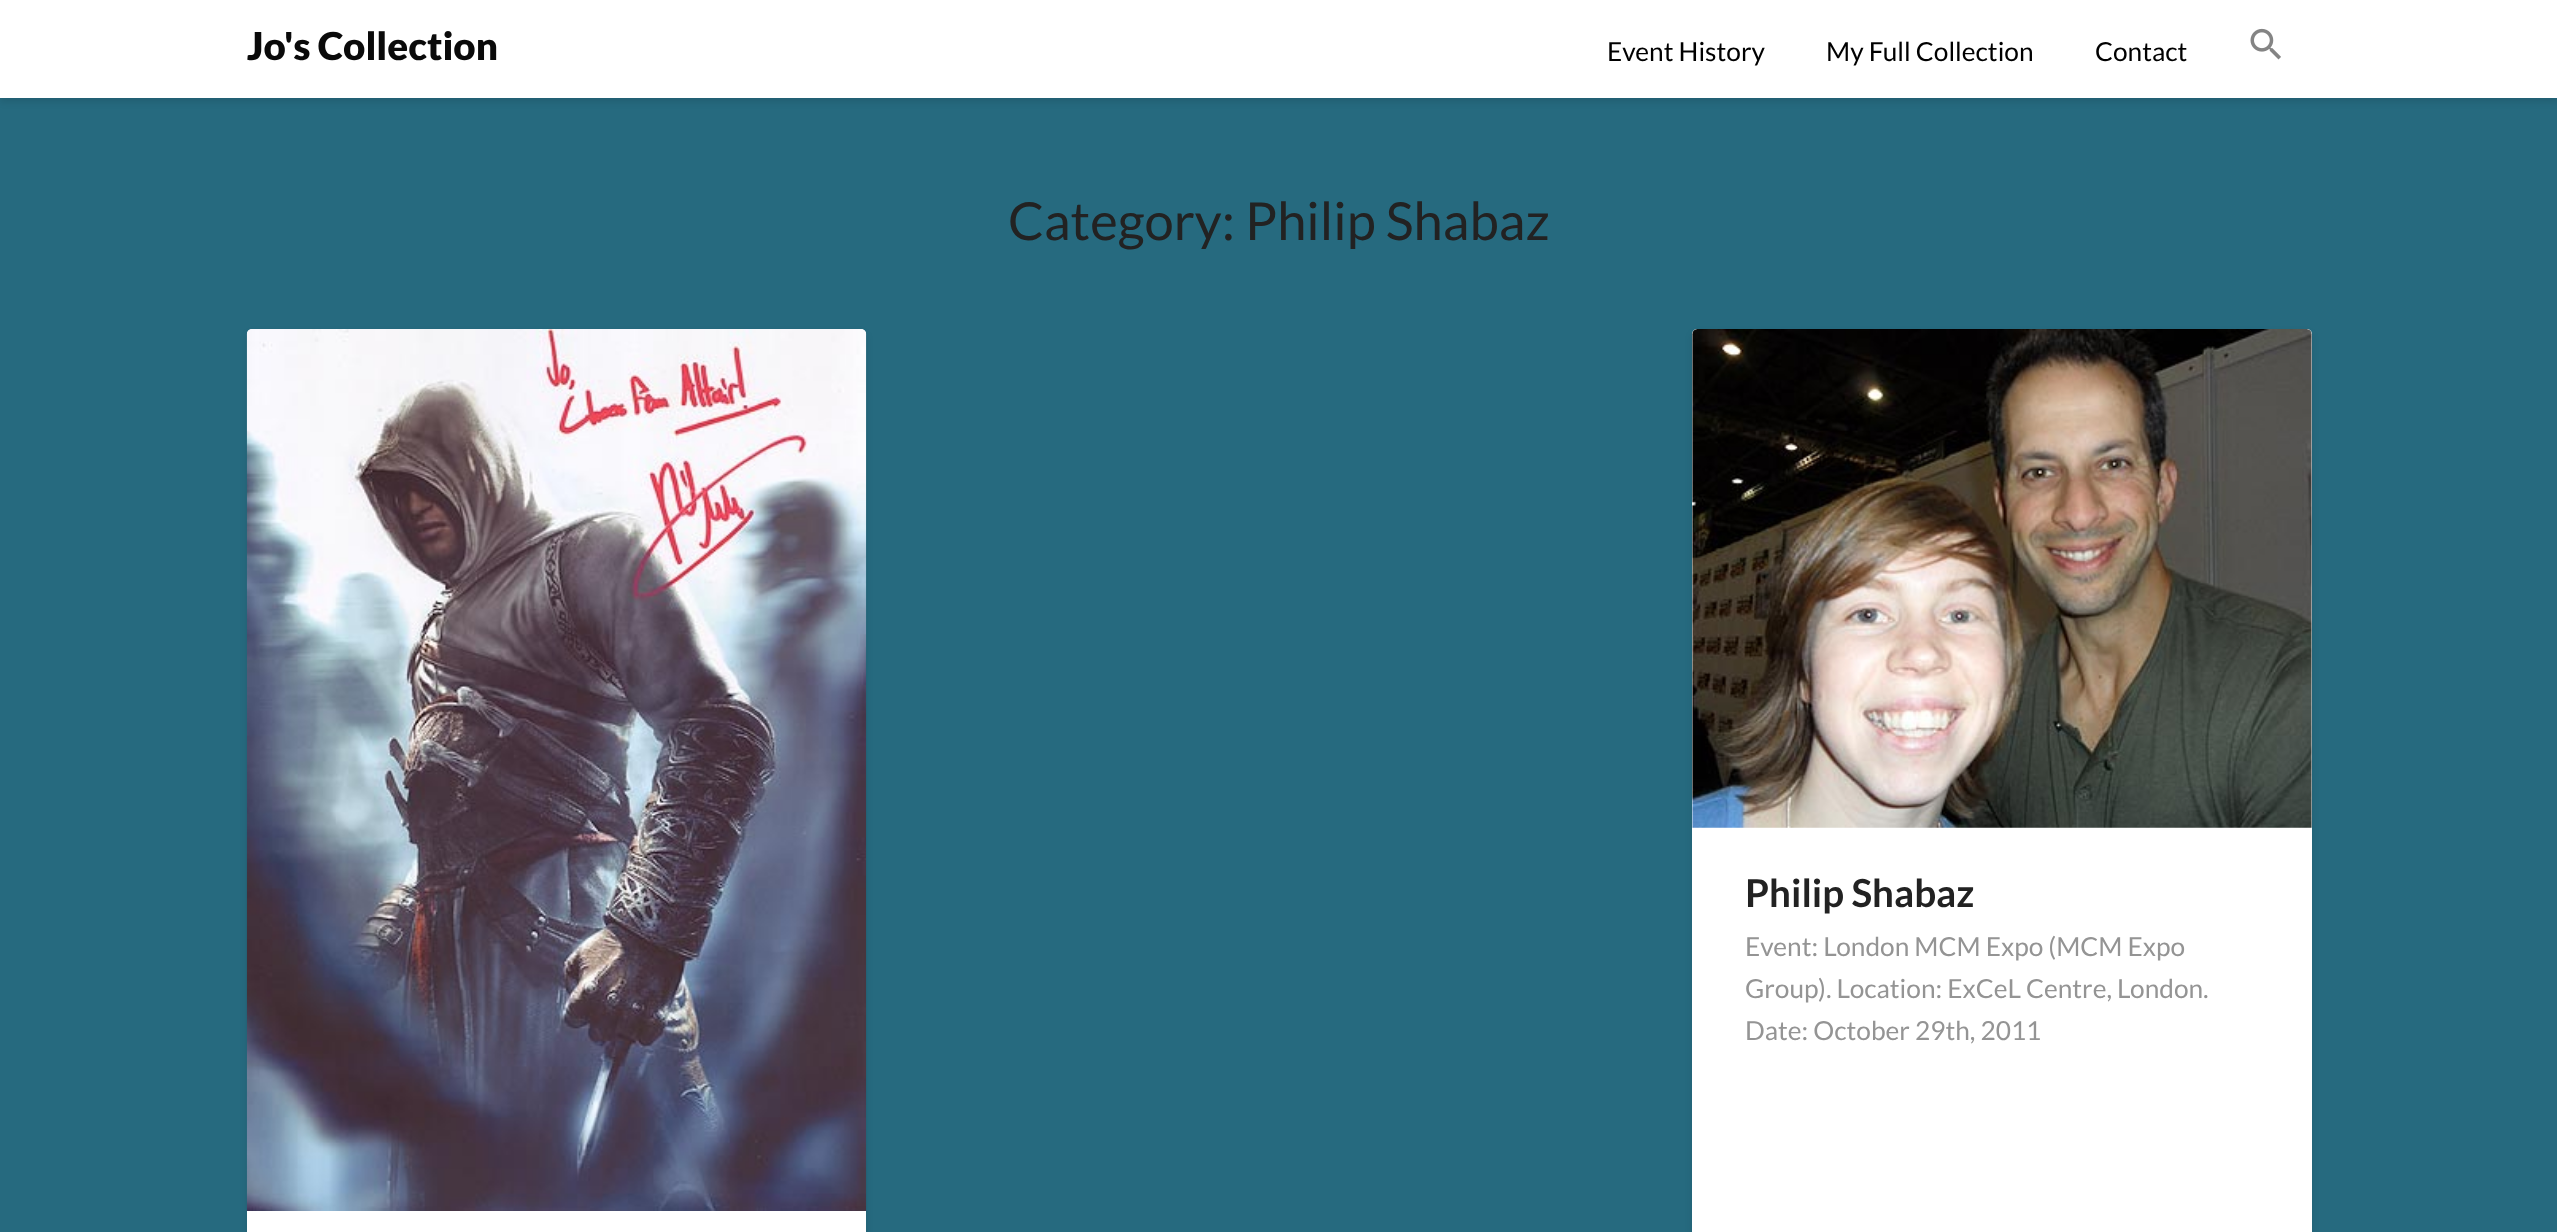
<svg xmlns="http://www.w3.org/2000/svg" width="2557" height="1232">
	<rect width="100%" height="100%" fill="#266A7F" />
	<rect x="0" y="4" width="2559" height="98" fill="#000000" fill-opacity="0.1" filter="blur(3.5px)" />
	<rect x="0" y="0" width="2557" height="98" fill="#FFFFFF" />
	<text x="247" y="60" font-family="Lato" font-size="38.5" font-weight="900" fill="#0A0A0A">Jo's Collection</text>
	<g font-family="Lato" font-size="26.25" fill="#000000">
		<text x="1607" y="61">Event History</text>
		<text x="1826" y="61">My Full Collection</text>
		<text x="2095" y="61">Contact</text>
	</g>
	<image x="2250" y="28" width="31" height="32" href="assets/img1.png" />
	<text x="1008" y="240" font-family="Lato" font-size="52.5" fill="#222222">Category: Philip Shabaz</text>
	<rect x="247" y="333" width="619" height="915" rx="5" fill="#000000" fill-opacity="0.1" filter="blur(3.5px)" />
	<rect x="247" y="329" width="619" height="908" rx="5" fill="#FFFFFF" />
	<image x="246" y="329" width="621" height="882" href="assets/img2.png" />
	<rect x="1692" y="333" width="620" height="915" rx="5" fill="#000000" fill-opacity="0.1" filter="blur(3.5px)" />
	<rect x="1692" y="329" width="620" height="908" rx="5" fill="#FFFFFF" />
	<image x="1692" y="329" width="620" height="499" href="assets/img3.png" />
	<text x="1745" y="907" font-family="Lato" font-size="38.5" font-weight="700" fill="#222222">Philip Shabaz</text>
	<g font-family="Lato" font-size="26.25" fill="#949494">
		<text x="1745" y="956">Event: London MCM Expo (MCM Expo</text>
		<text x="1745" y="998">Group). Location: ExCeL Centre, London.</text>
		<text x="1745" y="1040">Date: October 29th, 2011</text>
	</g>
</svg>
